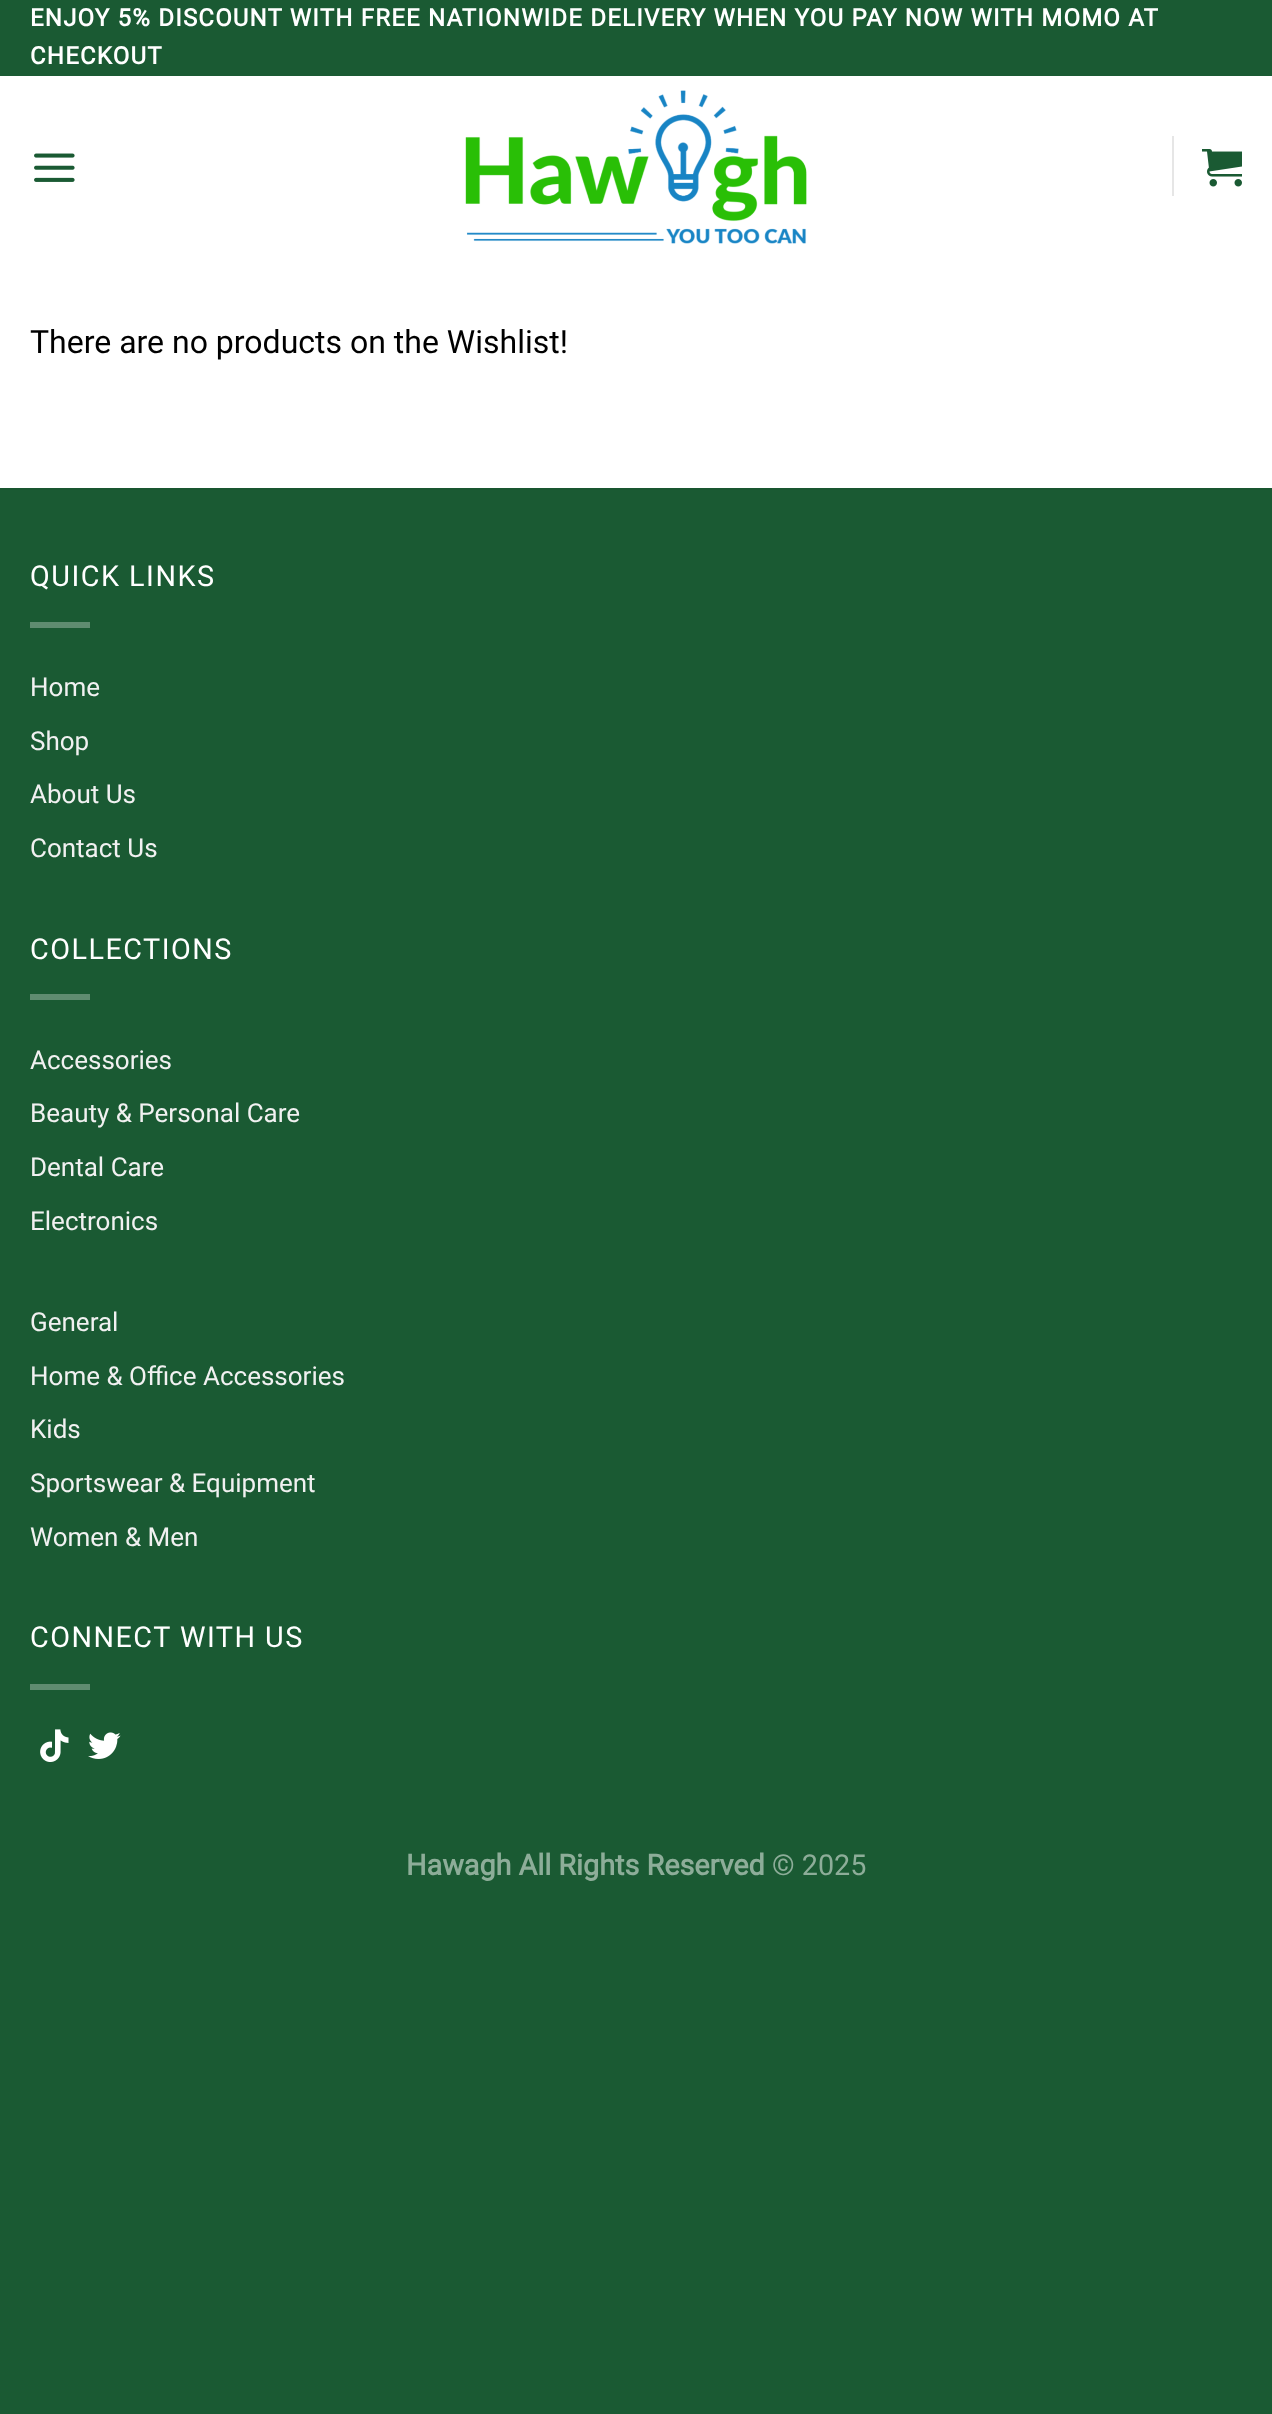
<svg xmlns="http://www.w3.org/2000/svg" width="1272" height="2414">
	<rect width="100%" height="100%" fill="#1A5A33" />
	<rect x="0" y="76" width="1272" height="412" fill="#FFFFFF" />
	<g font-family="Roboto" font-size="24" font-weight="700" letter-spacing="1.2" fill="#FFFFFF">
		<text x="30" y="26">ENJOY 5% DISCOUNT WITH FREE NATIONWIDE DELIVERY WHEN YOU PAY NOW WITH MOMO AT</text>
		<text x="30" y="64">CHECKOUT</text>
	</g>
	<image x="34" y="153" width="41" height="29" href="assets/img1.png" />
	<image x="465" y="90" width="342" height="154" href="assets/img2.png" />
	<rect x="1172" y="136" width="2" height="60" fill="#E6E6E6" />
	<image x="1202" y="149" width="40" height="38" href="assets/img3.png" />
	<text x="30" y="353" font-family="Roboto" font-size="32" fill="#000000">There are no products on the Wishlist!</text>
	<rect x="0" y="488" width="1272" height="2" fill="#195630" />
	<text x="30" y="586" font-family="Roboto" font-size="28.75" letter-spacing="1.5" fill="#FFFFFF">QUICK LINKS</text>
	<rect x="30" y="622" width="60" height="6" fill="#5F8C70" />
	<g font-family="Roboto" font-size="26" fill="#F1F1F1">
		<text x="30" y="696">Home</text>
		<text x="30" y="750">Shop</text>
		<text x="30" y="803">About Us</text>
		<text x="30" y="857">Contact Us</text>
	</g>
	<text x="30" y="959" font-family="Roboto" font-size="28.75" letter-spacing="1.5" fill="#FFFFFF">COLLECTIONS</text>
	<rect x="30" y="994" width="60" height="6" fill="#5F8C70" />
	<g font-family="Roboto" font-size="26" fill="#F1F1F1">
		<text x="30" y="1069">Accessories</text>
		<text x="30" y="1122">Beauty &amp; Personal Care</text>
		<text x="30" y="1176">Dental Care</text>
		<text x="30" y="1230">Electronics</text>
		<text x="30" y="1331">General</text>
		<text x="30" y="1385">Home &amp; Office Accessories</text>
		<text x="30" y="1438">Kids</text>
		<text x="30" y="1492">Sportswear &amp; Equipment</text>
		<text x="30" y="1546">Women &amp; Men</text>
	</g>
	<text x="30" y="1647" font-family="Roboto" font-size="28.75" letter-spacing="1.5" fill="#FFFFFF">CONNECT WITH US</text>
	<rect x="30" y="1684" width="60" height="6" fill="#5F8C70" />
	<image x="40" y="1729" width="29" height="33" href="assets/img4.png" />
	<image x="88" y="1732" width="33" height="27" href="assets/img5.png" />
	<text x="406" y="1875" font-family="Roboto" font-size="28.75" font-weight="700" fill="#8DAD99">Hawagh All Rights Reserved</text>
	<text x="772" y="1875" font-family="Roboto" font-size="28.75" fill="#8DAD99">© 2025</text>
</svg>
